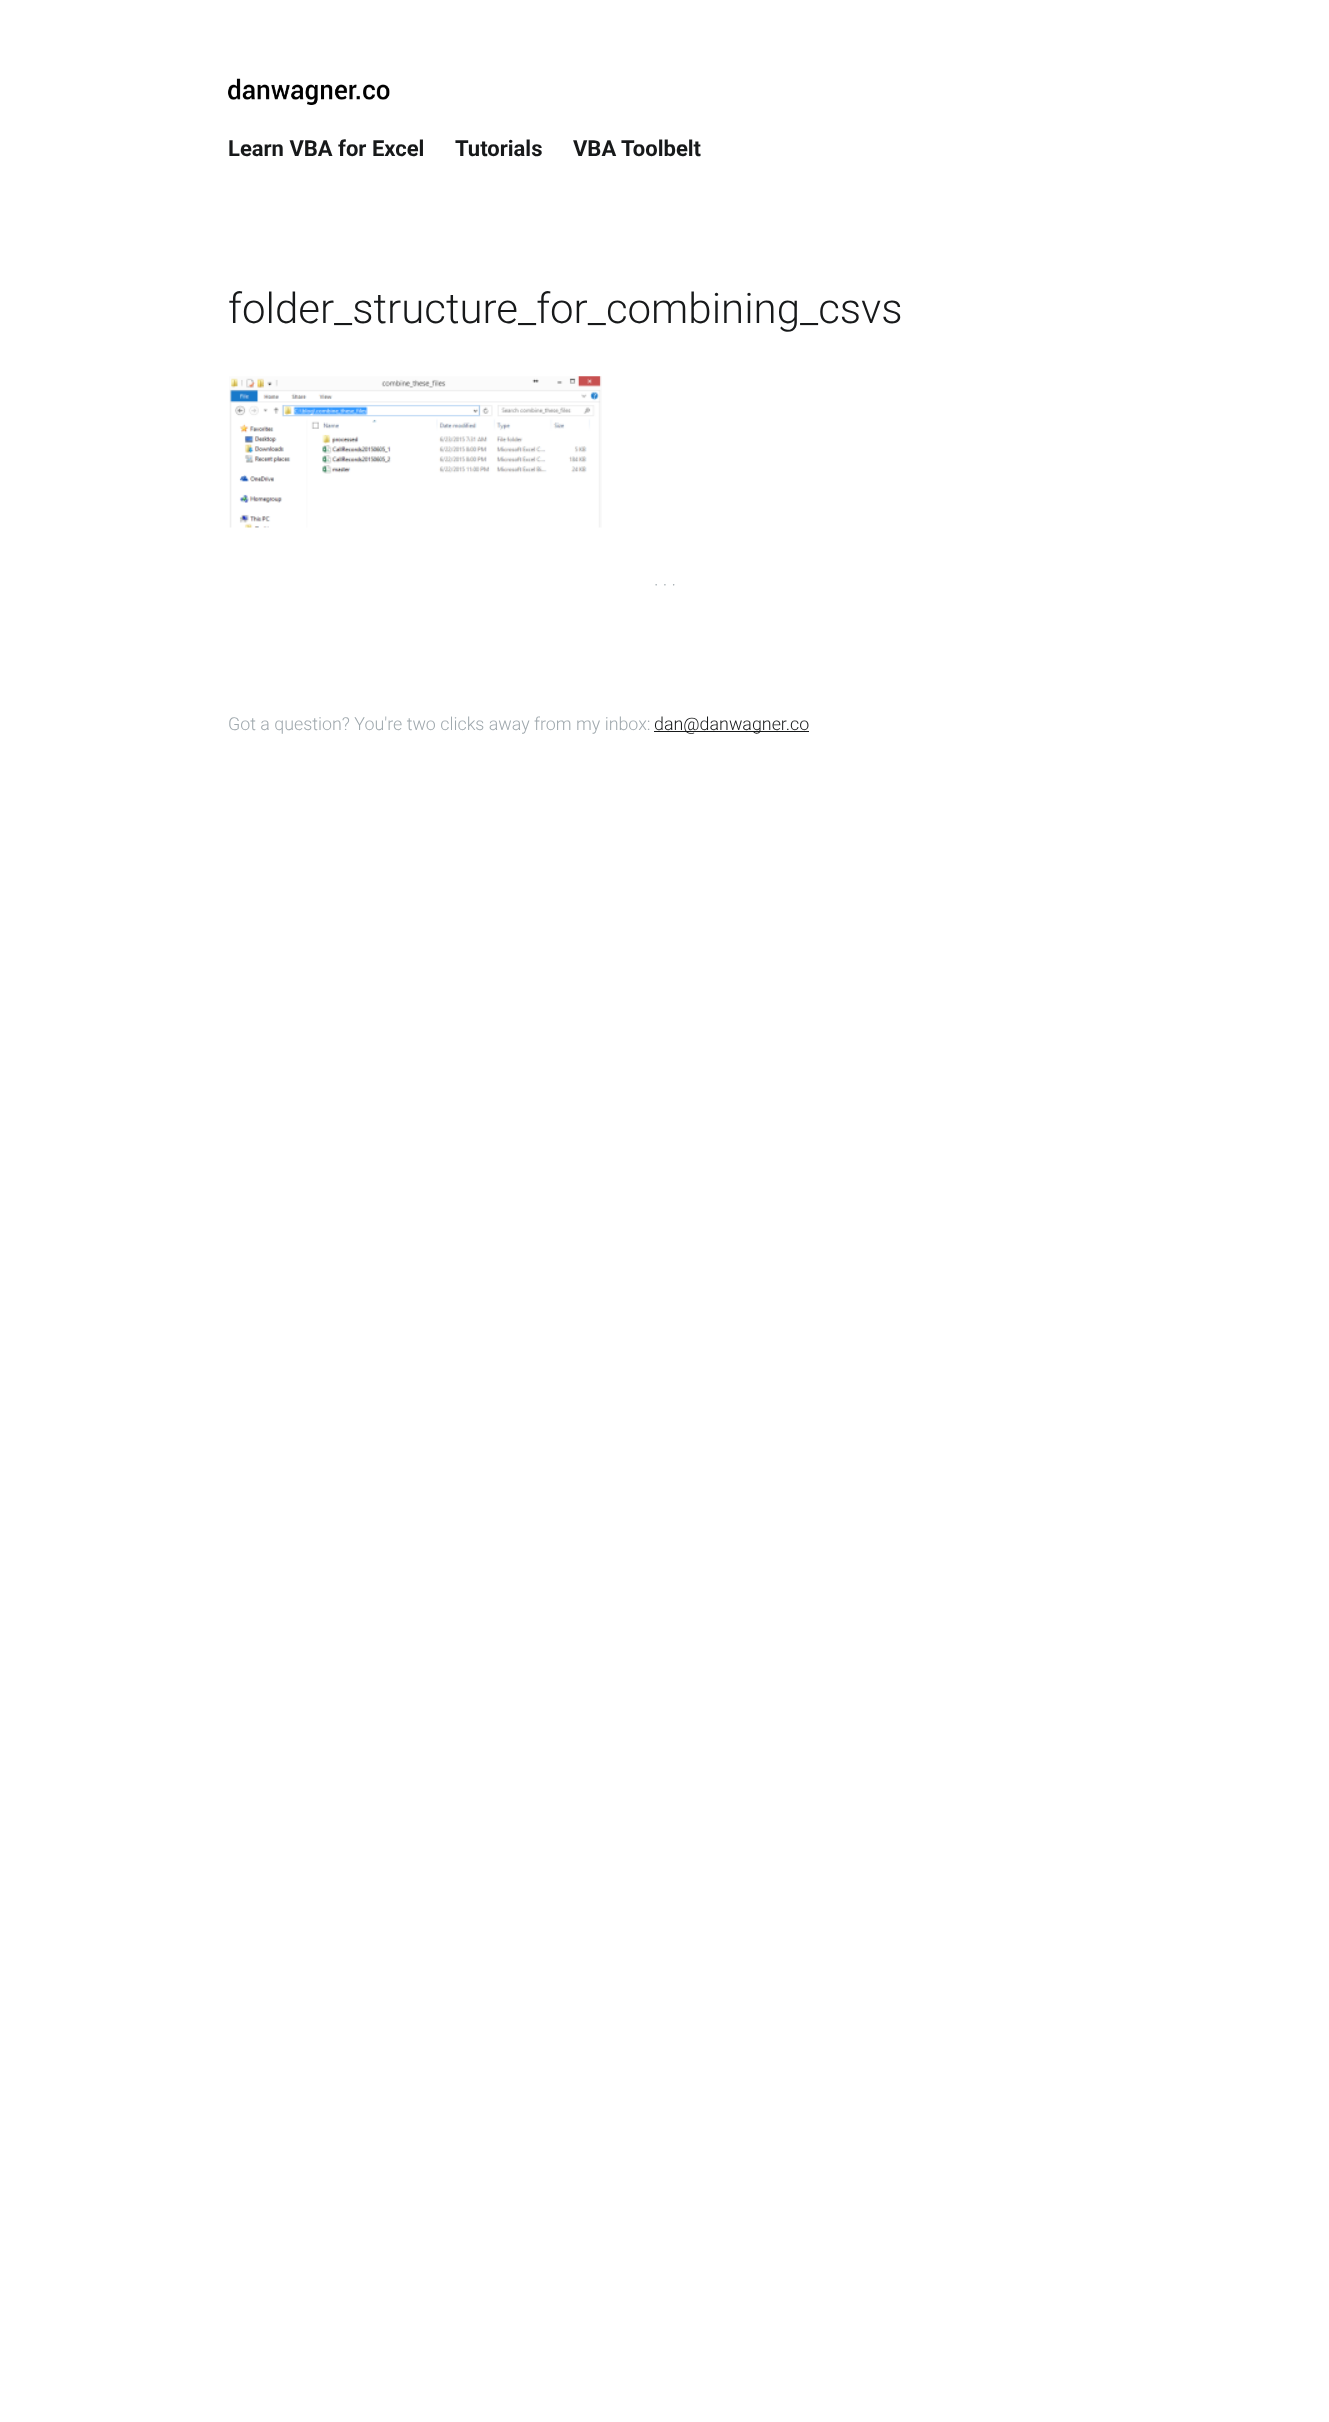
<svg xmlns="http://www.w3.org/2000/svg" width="1329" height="2422">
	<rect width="100%" height="100%" fill="#FFFFFF" />
	<image x="228" y="78" width="162" height="27" href="assets/img1.png" />
	<g font-family="Roboto" font-size="22" font-weight="700" fill="#17191A">
		<text x="228" y="156">Learn VBA for Excel</text>
		<text x="455" y="156">Tutorials</text>
		<text x="573" y="156">VBA Toolbelt</text>
	</g>
	<text x="228" y="323" font-family="Roboto" font-size="42" font-weight="300" fill="#17191A">folder_structure_for_combining_csvs</text>
	<image x="229" y="376" width="373" height="152" href="assets/img2.png" />
	<g font-family="Roboto" font-size="17.85" font-weight="300" fill="#A0A9AE">
		<text x="654" y="591">· · ·</text>
		<text x="228" y="730">Got a question? You're two clicks away from my inbox:</text>
	</g>
	<rect x="654" y="731" width="155" height="1" fill="#17191A" />
	<text x="654" y="730" font-family="Roboto" font-size="17.85" font-weight="300" fill="#17191A">dan@danwagner.co</text>
</svg>
